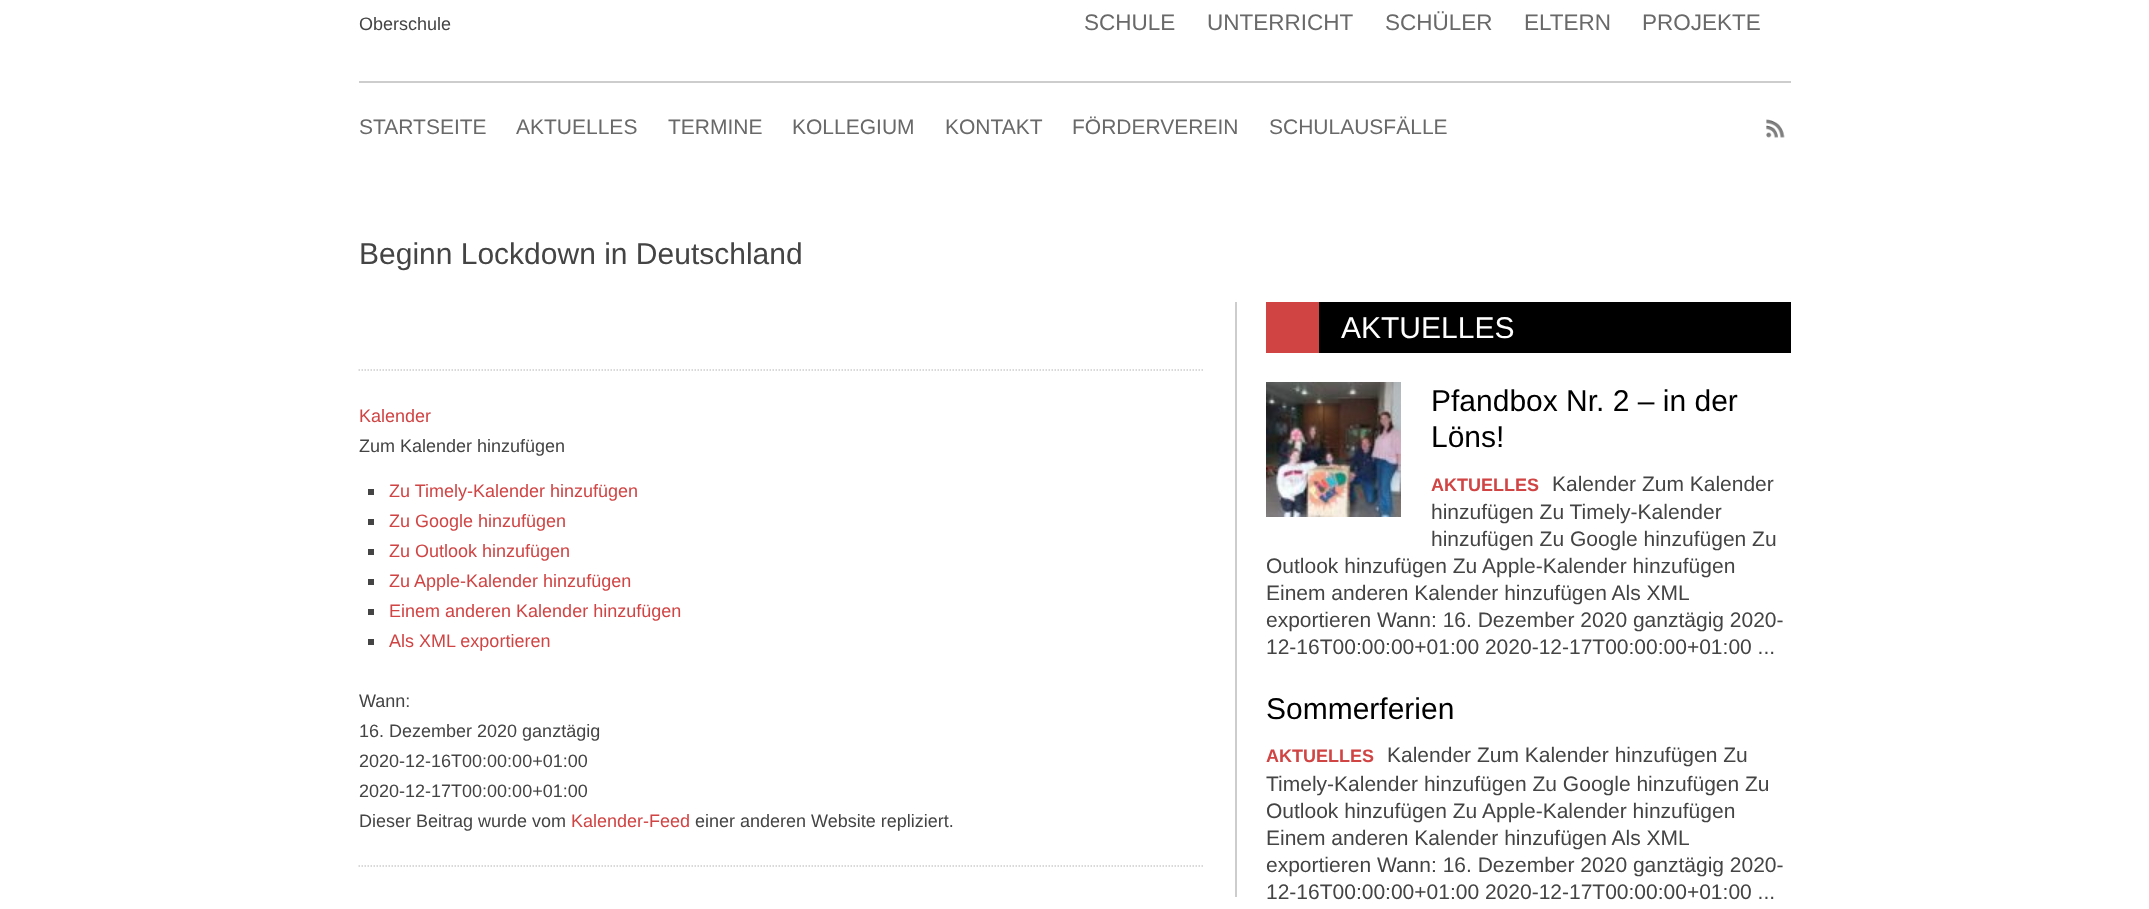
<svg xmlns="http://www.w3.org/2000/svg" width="2149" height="909">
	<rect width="100%" height="100%" fill="#FFFFFF" />
	<rect x="359" y="81" width="1432" height="2" fill="#CDCDCD" />
	<text x="359" y="30" font-family="Liberation Sans" font-size="18" fill="#444444">Oberschule</text>
	<g font-family="Liberation Sans" font-size="22.5" fill="#696969">
		<text x="1084" y="30">SCHULE</text>
		<text x="1207" y="30">UNTERRICHT</text>
		<text x="1385" y="30">SCHÜLER</text>
		<text x="1524" y="30">ELTERN</text>
		<text x="1642" y="30">PROJEKTE</text>
	</g>
	<g font-family="Liberation Sans" font-size="21" fill="#696969">
		<text x="359" y="134">STARTSEITE</text>
		<text x="516" y="134">AKTUELLES</text>
		<text x="668" y="134">TERMINE</text>
		<text x="792" y="134">KOLLEGIUM</text>
		<text x="945" y="134">KONTAKT</text>
		<text x="1072" y="134">FÖRDERVEREIN</text>
		<text x="1269" y="134">SCHULAUSFÄLLE</text>
	</g>
	<image x="1766" y="119" width="19" height="19" href="assets/img1.png" />
	<text x="359" y="264" font-family="Liberation Sans" font-size="30" fill="#444444">Beginn Lockdown in Deutschland</text>
	<rect x="1235" y="302" width="2" height="595" fill="#CDCDCD" />
	<path d="M358.5 370H1204.5" fill="none" stroke="#CDCDCD" stroke-width="1.5" stroke-dasharray="1.5 1.5" />
	<text x="359" y="422" font-family="Liberation Sans" font-size="18" fill="#D14444">Kalender</text>
	<text x="359" y="452" font-family="Liberation Sans" font-size="18" fill="#444444">Zum Kalender hinzufügen</text>
	<rect x="368" y="489" width="6" height="6" fill="#444444" />
	<text x="389" y="497" font-family="Liberation Sans" font-size="18" fill="#D14444">Zu Timely-Kalender hinzufügen</text>
	<rect x="368" y="519" width="6" height="6" fill="#444444" />
	<text x="389" y="527" font-family="Liberation Sans" font-size="18" fill="#D14444">Zu Google hinzufügen</text>
	<rect x="368" y="549" width="6" height="6" fill="#444444" />
	<text x="389" y="557" font-family="Liberation Sans" font-size="18" fill="#D14444">Zu Outlook hinzufügen</text>
	<rect x="368" y="579" width="6" height="6" fill="#444444" />
	<text x="389" y="587" font-family="Liberation Sans" font-size="18" fill="#D14444">Zu Apple-Kalender hinzufügen</text>
	<rect x="368" y="609" width="6" height="6" fill="#444444" />
	<text x="389" y="617" font-family="Liberation Sans" font-size="18" fill="#D14444">Einem anderen Kalender hinzufügen</text>
	<rect x="368" y="639" width="6" height="6" fill="#444444" />
	<text x="389" y="647" font-family="Liberation Sans" font-size="18" fill="#D14444">Als XML exportieren</text>
	<g font-family="Liberation Sans" font-size="18" fill="#444444">
		<text x="359" y="707">Wann:</text>
		<text x="359" y="737">16. Dezember 2020 ganztägig</text>
		<text x="359" y="767">2020-12-16T00:00:00+01:00</text>
		<text x="359" y="797">2020-12-17T00:00:00+01:00</text>
		<text x="359" y="827">Dieser Beitrag wurde vom</text>
	</g>
	<text x="571" y="827" font-family="Liberation Sans" font-size="18" fill="#D14444">Kalender-Feed</text>
	<text x="695" y="827" font-family="Liberation Sans" font-size="18" fill="#444444">einer anderen Website repliziert.</text>
	<path d="M358.5 866H1204.5" fill="none" stroke="#CDCDCD" stroke-width="1.5" stroke-dasharray="1.5 1.5" />
	<rect x="1319" y="302" width="472" height="51" fill="#000000" />
	<rect x="1266" y="302" width="53" height="51" fill="#D14444" />
	<text x="1341" y="338" font-family="Liberation Sans" font-size="30" fill="#FFFFFF">AKTUELLES</text>
	<image x="1266" y="382" width="135" height="135" href="assets/img2.png" />
	<g font-family="Liberation Sans" font-size="30" fill="#000000">
		<text x="1431" y="411">Pfandbox Nr. 2 – in der</text>
		<text x="1431" y="447">Löns!</text>
	</g>
	<text x="1431" y="491" font-family="Liberation Sans" font-size="18" font-weight="700" fill="#D14444">AKTUELLES</text>
	<g font-family="Liberation Sans" font-size="21" fill="#444444">
		<text x="1552" y="491">Kalender Zum Kalender</text>
		<text x="1431" y="519">hinzufügen Zu Timely-Kalender</text>
		<text x="1431" y="546">hinzufügen Zu Google hinzufügen Zu</text>
		<text x="1266" y="573">Outlook hinzufügen Zu Apple-Kalender hinzufügen</text>
		<text x="1266" y="600">Einem anderen Kalender hinzufügen Als XML</text>
		<text x="1266" y="627">exportieren Wann: 16. Dezember 2020 ganztägig 2020-</text>
		<text x="1266" y="654">12-16T00:00:00+01:00 2020-12-17T00:00:00+01:00 ...</text>
	</g>
	<text x="1266" y="719" font-family="Liberation Sans" font-size="30" fill="#000000">Sommerferien</text>
	<text x="1266" y="762" font-family="Liberation Sans" font-size="18" font-weight="700" fill="#D14444">AKTUELLES</text>
	<g font-family="Liberation Sans" font-size="21" fill="#444444">
		<text x="1387" y="762">Kalender Zum Kalender hinzufügen Zu</text>
		<text x="1266" y="791">Timely-Kalender hinzufügen Zu Google hinzufügen Zu</text>
		<text x="1266" y="818">Outlook hinzufügen Zu Apple-Kalender hinzufügen</text>
		<text x="1266" y="845">Einem anderen Kalender hinzufügen Als XML</text>
		<text x="1266" y="872">exportieren Wann: 16. Dezember 2020 ganztägig 2020-</text>
		<text x="1266" y="899">12-16T00:00:00+01:00 2020-12-17T00:00:00+01:00 ...</text>
	</g>
</svg>
